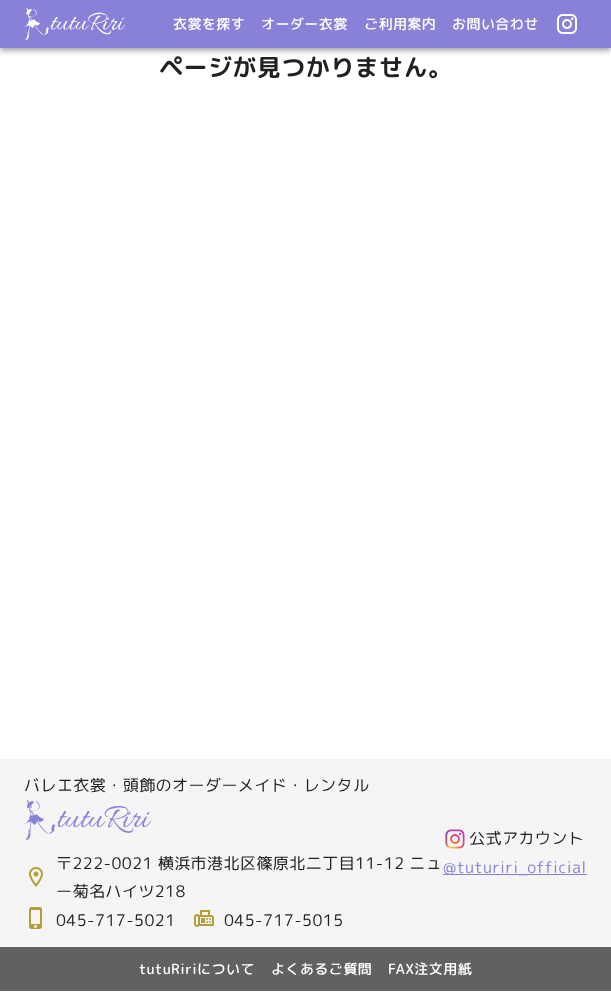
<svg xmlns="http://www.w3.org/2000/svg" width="611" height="1003">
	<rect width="100%" height="100%" fill="#FFFFFF" />
	<rect x="0" y="1" width="611" height="48" fill="#000000" fill-opacity="0.12" filter="blur(5px)" />
	<rect x="0" y="4" width="611" height="48" fill="#000000" fill-opacity="0.14" filter="blur(2.5px)" />
	<rect x="1" y="3" width="609" height="46" fill="#000000" fill-opacity="0.2" filter="blur(2px)" />
	<rect x="0" y="0" width="611" height="48" fill="#8881D8" />
	<image x="24" y="8" width="102" height="32" href="assets/img1.png" />
	<g font-family="'Rounded Mplus 1c'" font-size="14" font-weight="500" letter-spacing="0.45" fill="#FFFFFF">
		<text x="173" y="29">衣裳を探す</text>
		<text x="261" y="29">オーダー衣裳</text>
		<text x="364" y="29">ご利用案内</text>
		<text x="452" y="29">お問い合わせ</text>
	</g>
	<image x="557" y="14" width="20" height="20" href="assets/img2.png" />
	<text x="159" y="76" font-family="'Rounded Mplus 1c Bold'" font-size="24" font-weight="700" letter-spacing="0.45" fill="#212121">ページが見つかりません。</text>
	<rect x="0" y="759" width="611" height="188" fill="#F5F5F5" />
	<text x="24" y="791" font-family="'Rounded Mplus 1c'" font-size="16" letter-spacing="0.45" fill="#212121">バレエ衣裳・頭飾のオーダーメイド・レンタル</text>
	<image x="24" y="800" width="128" height="40" href="assets/img3.png" />
	<image x="29" y="867" width="14" height="20" href="assets/img4.png" />
	<g font-family="'Rounded Mplus 1c'" font-size="16" letter-spacing="0.45" fill="#212121">
		<text x="56" y="869">〒222-0021 横浜市港北区篠原北⼆丁⽬11-12 ニュ</text>
		<text x="56" y="897">ー菊名ハイツ218</text>
	</g>
	<image x="29" y="907" width="13" height="22" href="assets/img5.png" />
	<text x="56" y="926" font-family="'Rounded Mplus 1c'" font-size="16" letter-spacing="0.45" fill="#212121">045-717-5021</text>
	<image x="194" y="910" width="20" height="17" href="assets/img6.png" />
	<text x="224" y="926" font-family="'Rounded Mplus 1c'" font-size="16" letter-spacing="0.45" fill="#212121">045-717-5015</text>
	<image x="445" y="829" width="20" height="20" href="assets/img7.png" />
	<text x="469" y="844" font-family="'Rounded Mplus 1c'" font-size="16" letter-spacing="0.45" fill="#212121">公式アカウント</text>
	<rect x="443" y="874" width="144" height="1" fill="#8881D8" />
	<text x="443" y="873" font-family="'Rounded Mplus 1c'" font-size="16" letter-spacing="0.45" fill="#8881D8">@tuturiri_official</text>
	<rect x="0" y="947" width="611" height="44" fill="#616161" />
	<g font-family="'Rounded Mplus 1c'" font-size="14" font-weight="500" letter-spacing="0.45" fill="#FFFFFF">
		<text x="139" y="974">tutuRiriについて</text>
		<text x="271" y="974">よくあるご質問</text>
		<text x="388" y="974">FAX注文用紙</text>
	</g>
</svg>
